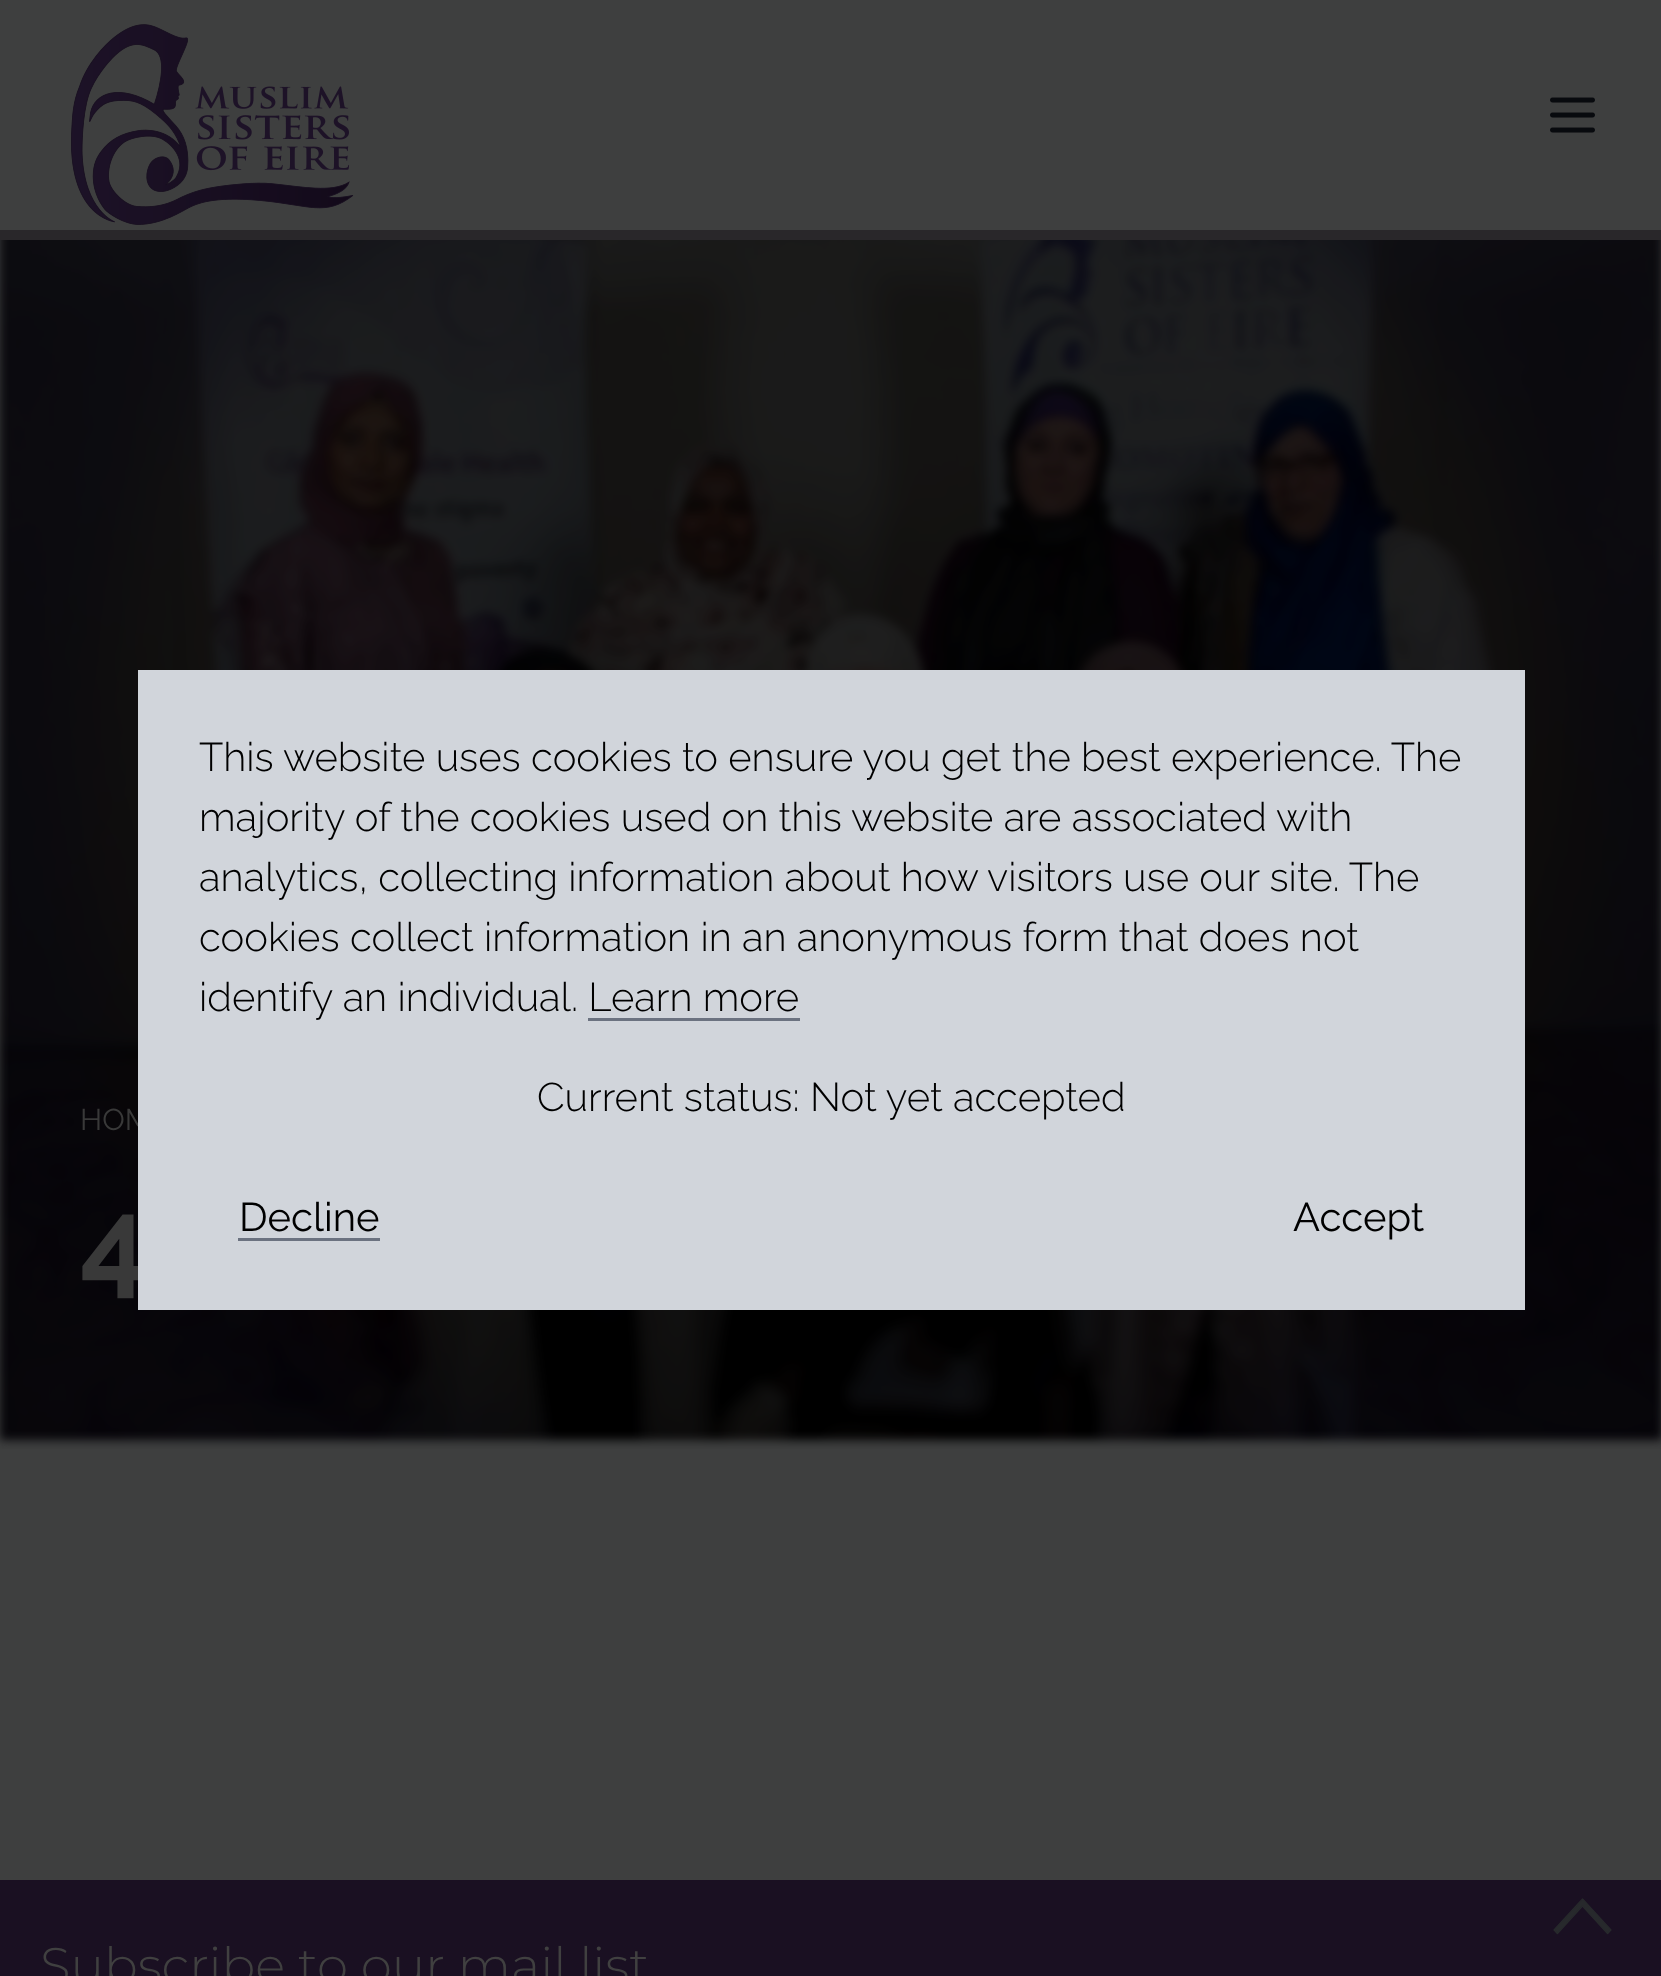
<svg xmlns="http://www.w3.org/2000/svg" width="1661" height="1976">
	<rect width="100%" height="100%" fill="#3E3F3F" />
	<rect x="0" y="230" width="1661" height="10" fill="#29272A" />
	<image x="71" y="24" width="283" height="201" href="assets/img1.png" />
	<image x="1550" y="97" width="45" height="36" href="assets/img2.png" />
	<image x="0" y="240" width="1661" height="1209" href="assets/img3.png" />
	<text x="80" y="1130" font-family="Raleway" font-size="30" fill="#393939">HOM</text>
	<text x="80" y="1283" font-family="Raleway" font-size="120" font-weight="700" fill="#393939">4</text>
	<rect x="138" y="670" width="1387" height="640" fill="#D1D5DB" />
	<g font-family="Raleway" font-size="40" font-weight="300" fill="#000000">
		<text x="199" y="771">This website uses cookies to ensure you get the best experience. The</text>
		<text x="199" y="831">majority of the cookies used on this website are associated with</text>
		<text x="199" y="891">analytics, collecting information about how visitors use our site. The</text>
		<text x="199" y="951">cookies collect information in an anonymous form that does not</text>
		<text x="199" y="1011">identify an individual. Learn more</text>
	</g>
	<rect x="588" y="1018" width="212" height="3" fill="#6B7280" />
	<text x="537" y="1111" font-family="Raleway" font-size="40" font-weight="300" fill="#000000">Current status: Not yet accepted</text>
	<text x="239" y="1231" font-family="Raleway" font-size="40" fill="#000000">Decline</text>
	<rect x="238" y="1238" width="142" height="3" fill="#6B7280" />
	<text x="1293" y="1231" font-family="Raleway" font-size="40" fill="#000000">Accept</text>
	<rect x="0" y="1880" width="1661" height="96" fill="#1A1022" />
	<text x="40" y="1983" font-family="Montserrat" font-size="50" font-weight="300" fill="#404040">Subscribe to our mail list</text>
	<path d="M1611 1930L1583 1899L1554 1930L1557 1934L1582 1906L1608 1934Z" fill="#27292C" />
	<path d="M1611 1930L1582.5 1899L1554 1930L1557.5 1933.5L1582.5 1906L1607.5 1933.5Z" fill="none" stroke="#27292C" stroke-width="1.2" stroke-linejoin="round" />
</svg>
